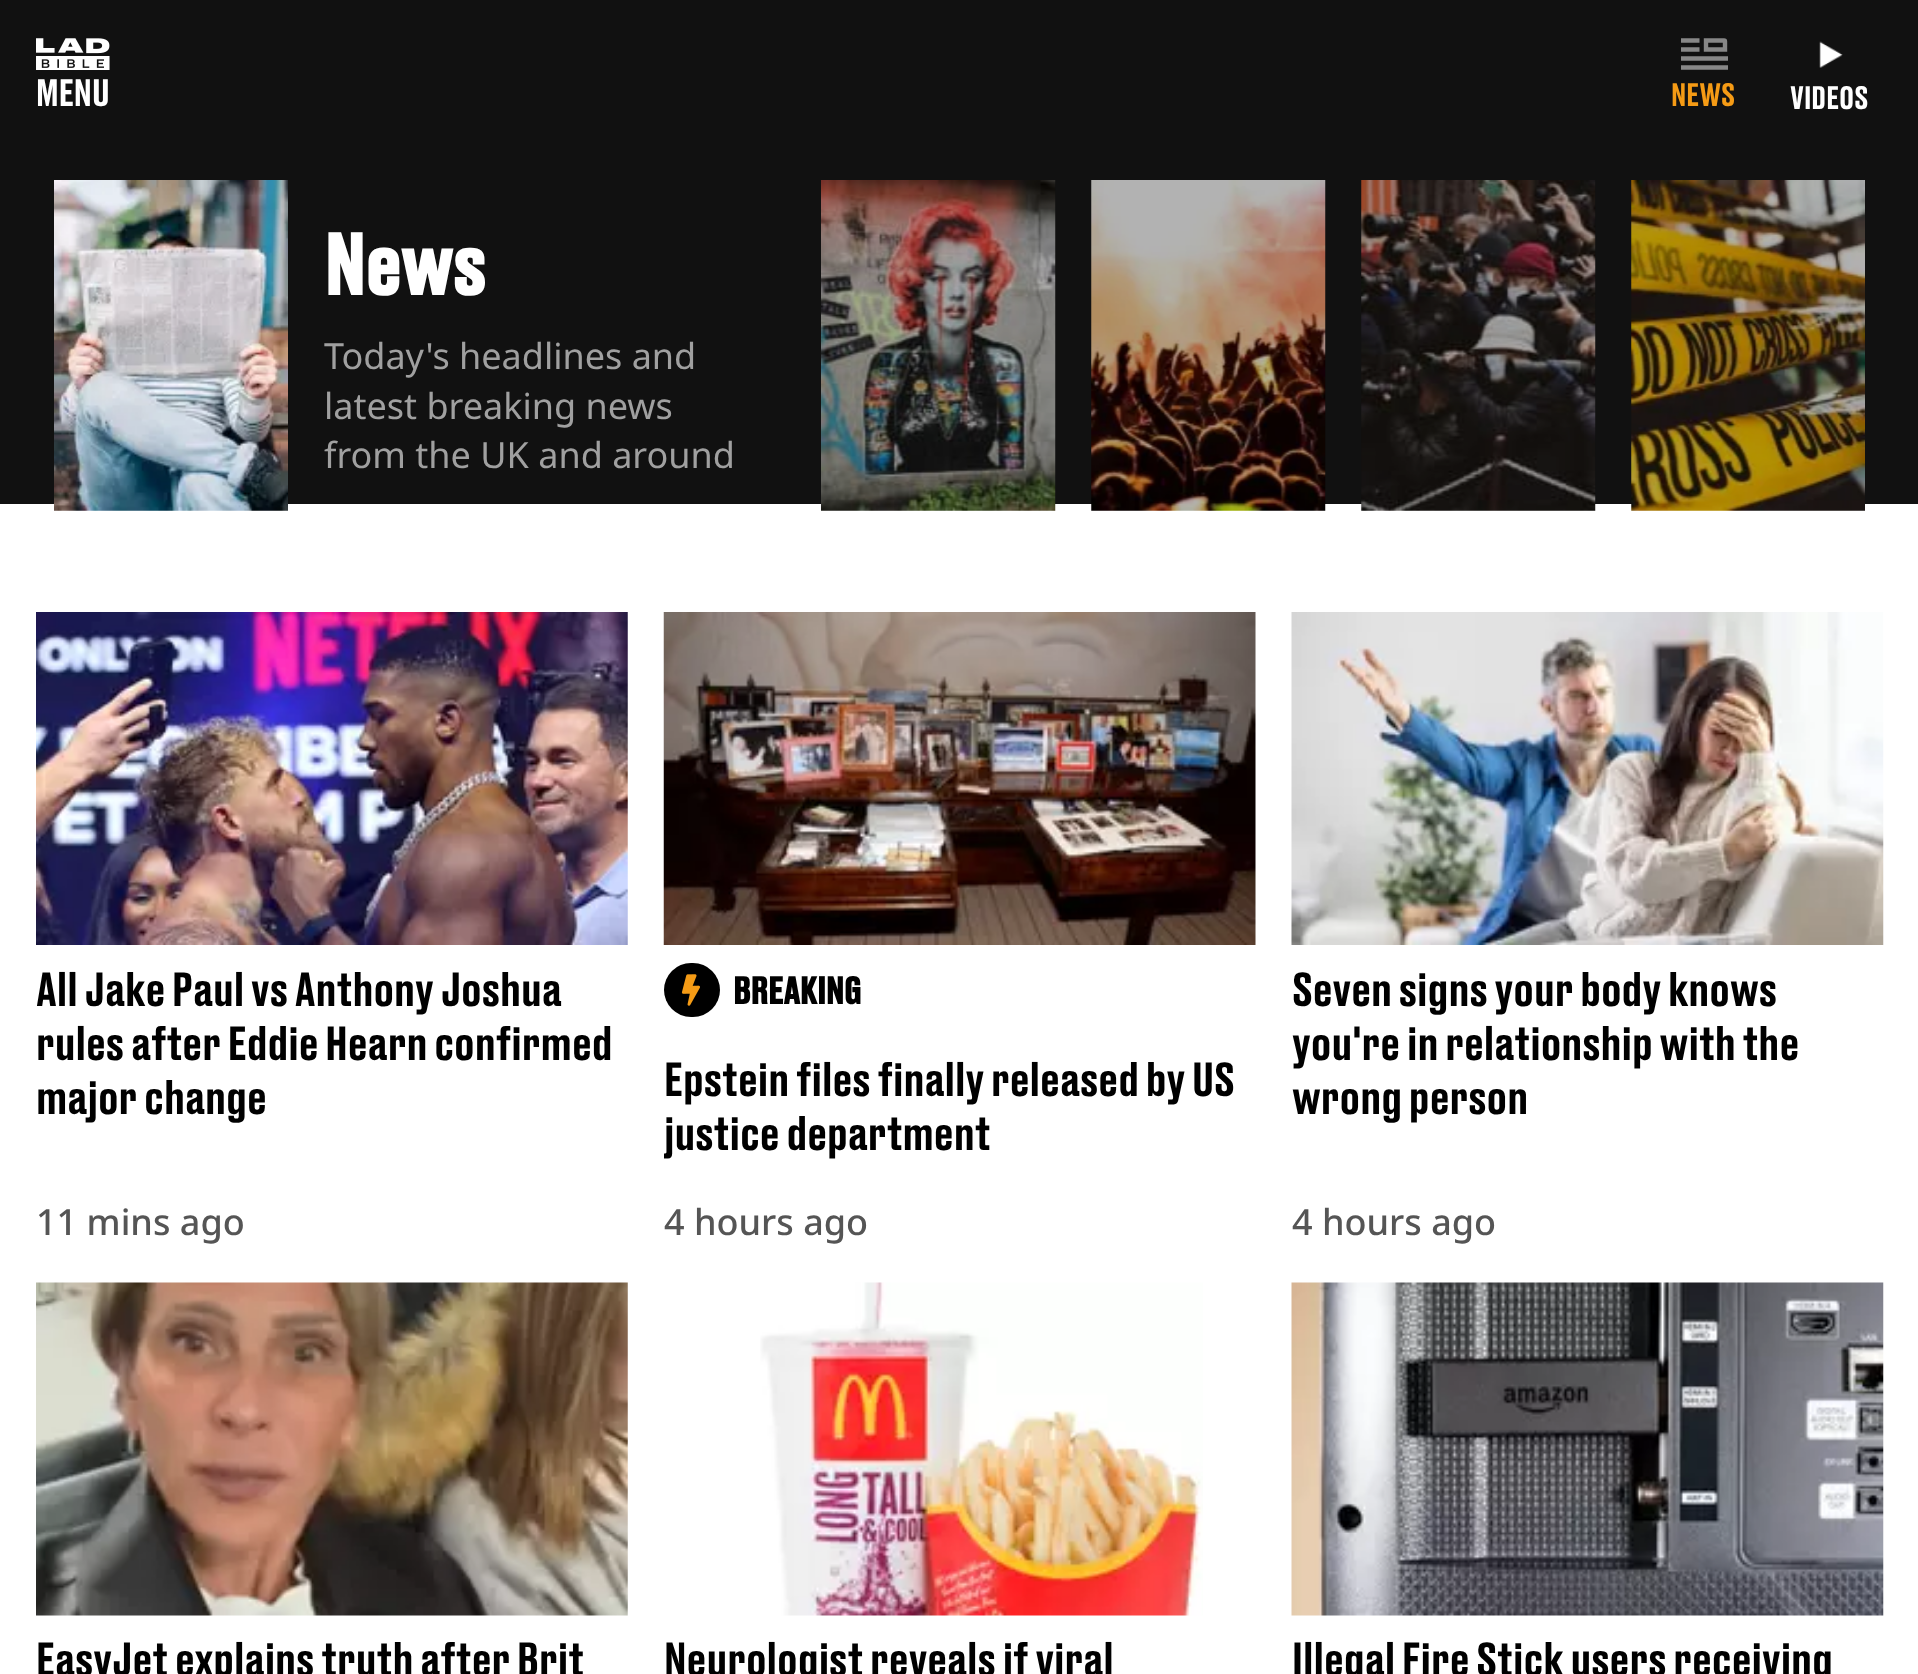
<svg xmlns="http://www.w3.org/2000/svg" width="1918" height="1674">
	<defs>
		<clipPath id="clip1"><rect x="664" y="1053" width="592" height="108" /></clipPath>
	</defs>
	<rect width="100%" height="100%" fill="#FFFFFF" />
	<rect x="0" y="0" width="1918" height="504" fill="#111111" />
	<image x="36" y="38" width="74" height="32" href="assets/img1.png" />
	<text x="36" y="106" font-family="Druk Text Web" font-size="36" font-weight="500" fill="#FFFFFF">MENU</text>
	<path d="M1681 58.5H1728M1681 67.5H1728M1681 40.5H1699.5M1681 49.5H1699.5M1706 40.5H1724C1724.5 40.5 1725 41 1725 41.5V49.5H1706Z" fill="none" stroke="#878787" stroke-width="4.4" />
	<text x="1671" y="106" font-family="Druk Text Web" font-size="30.5" font-weight="500" fill="#F59B15">NEWS</text>
	<image x="1819" y="41" width="24" height="27" href="assets/img2.png" />
	<text x="1790" y="109" font-family="Druk Text Web" font-size="30.5" font-weight="500" fill="#FFFFFF">VIDEOS</text>
	<image x="54" y="180" width="234" height="331" href="assets/img3.png" />
	<text x="324" y="295" font-family="Druk Text Web" font-size="81" font-weight="700" fill="#FFFFFF">News</text>
	<g font-family="Noto Sans" font-size="36" fill="#A0A0A0">
		<text x="324" y="369">Today's headlines and</text>
		<text x="324" y="419">latest breaking news</text>
		<text x="324" y="468">from the UK and around</text>
	</g>
	<image x="821" y="180" width="235" height="331" href="assets/img4.png" />
	<image x="1091" y="180" width="235" height="331" href="assets/img5.png" />
	<image x="1361" y="180" width="235" height="331" href="assets/img6.png" />
	<image x="1631" y="180" width="234" height="331" href="assets/img7.png" />
	<image x="36" y="612" width="592" height="333" href="assets/img8.png" />
	<g font-family="Druk Text Web" font-size="45" font-weight="500" fill="#000000">
		<text x="36" y="1006">All Jake Paul vs Anthony Joshua</text>
		<text x="36" y="1060">rules after Eddie Hearn confirmed</text>
		<text x="36" y="1114">major change</text>
	</g>
	<text x="36" y="1235" font-family="Noto Sans" font-size="36" font-weight="500" fill="#555555">11 mins ago</text>
	<image x="663" y="612" width="593" height="333" href="assets/img9.png" />
	<rect x="664" y="963" width="56" height="54" rx="27" fill="#000000" />
	<image x="681" y="974" width="19" height="32" href="assets/img10.png" />
	<text x="733" y="1004" font-family="Druk Text Web" font-size="36" font-weight="700" fill="#000000">BREAKING</text>
	<text x="664" y="1096" font-family="Druk Text Web" font-size="45" font-weight="500" fill="#000000">Epstein files finally released by US</text>
	<g clip-path="url(#clip1)">
		<text x="664" y="1150" font-family="Druk Text Web" font-size="45" font-weight="500" fill="#000000">justice department</text>
	</g>
	<text x="664" y="1235" font-family="Noto Sans" font-size="36" font-weight="500" fill="#555555">4 hours ago</text>
	<image x="1291" y="612" width="593" height="333" href="assets/img11.png" />
	<g font-family="Druk Text Web" font-size="45" font-weight="500" fill="#000000">
		<text x="1292" y="1006">Seven signs your body knows</text>
		<text x="1292" y="1060">you're in relationship with the</text>
		<text x="1292" y="1114">wrong person</text>
	</g>
	<text x="1292" y="1235" font-family="Noto Sans" font-size="36" font-weight="500" fill="#555555">4 hours ago</text>
	<image x="36" y="1282" width="592" height="334" href="assets/img12.png" />
	<text x="36" y="1676" font-family="Druk Text Web" font-size="45" font-weight="500" fill="#000000">EasyJet explains truth after Brit</text>
	<image x="760" y="1282" width="443" height="334" href="assets/img13.png" />
	<text x="664" y="1676" font-family="Druk Text Web" font-size="45" font-weight="500" fill="#000000">Neurologist reveals if viral</text>
	<image x="1291" y="1282" width="593" height="334" href="assets/img14.png" />
	<text x="1292" y="1676" font-family="Druk Text Web" font-size="45" font-weight="500" fill="#000000">Illegal Fire Stick users receiving</text>
</svg>
